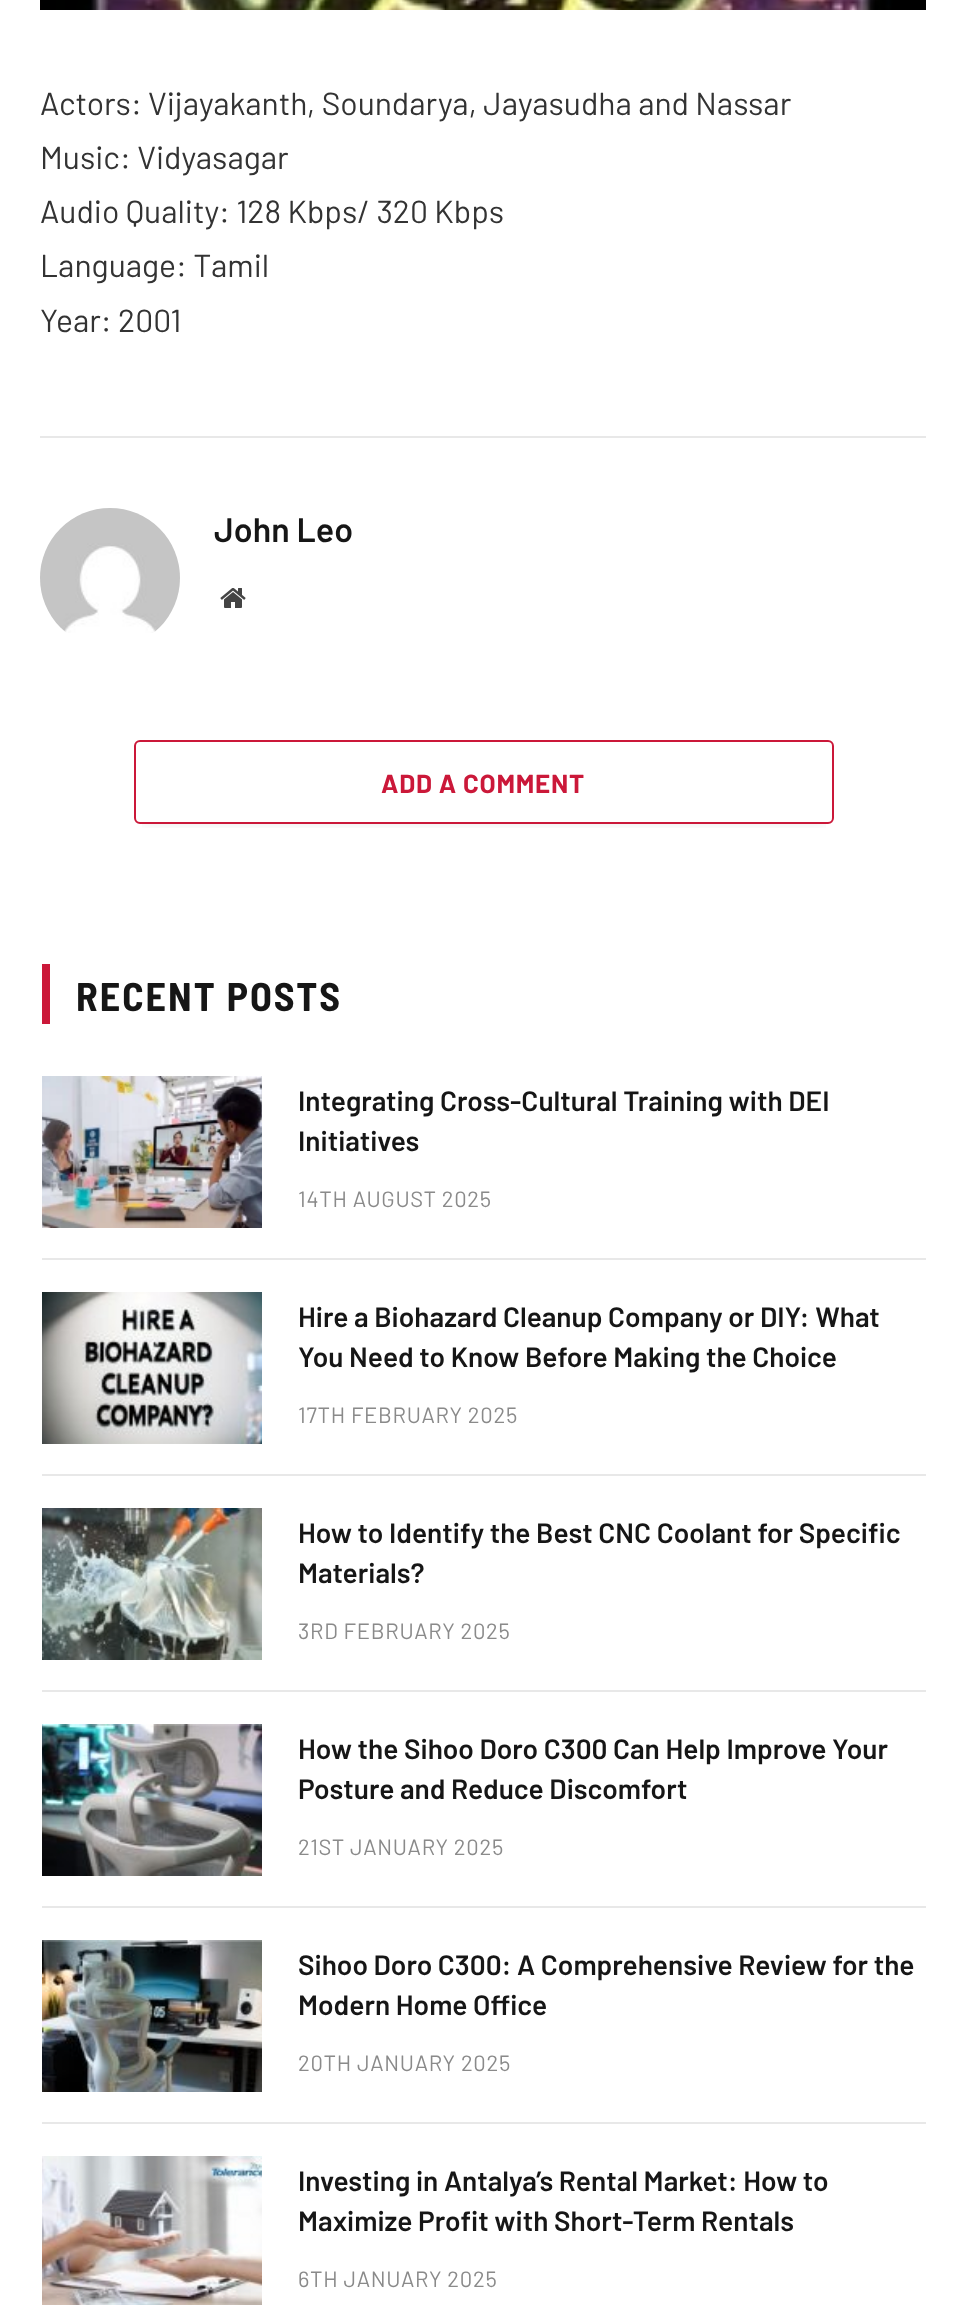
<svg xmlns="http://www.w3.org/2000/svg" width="965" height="2305">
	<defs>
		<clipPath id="clip1"><rect x="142" y="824" width="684" height="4" /></clipPath>
	</defs>
	<rect width="100%" height="100%" fill="#FFFFFF" />
	<image x="40" y="0" width="886" height="10" href="assets/img1.png" />
	<g font-family="Barlow" font-size="31.9" fill="#333333">
		<text x="40" y="115">Actors: Vijayakanth, Soundarya, Jayasudha and Nassar</text>
		<text x="40" y="169">Music: Vidyasagar</text>
		<text x="40" y="223">Audio Quality: 128 Kbps/ 320 Kbps</text>
		<text x="40" y="277">Language: Tamil</text>
		<text x="40" y="332">Year: 2001</text>
	</g>
	<rect x="40" y="436" width="886" height="2" fill="#E8E8E8" />
	<image x="40" y="508" width="140" height="125" href="assets/img2.png" />
	<text x="214" y="542" font-family="Barlow" font-size="34" font-weight="600" fill="#161616">John Leo</text>
	<image x="220" y="588" width="26" height="20" href="assets/img3.png" />
	<g clip-path="url(#clip1)">
		<rect x="142" y="752" width="684" height="68" fill="#000000" fill-opacity="0.16" filter="blur(7px)" />
	</g>
	<rect x="135" y="741" width="698" height="82" rx="5" fill="none" stroke="#CB1839" stroke-width="2" />
	<text x="381" y="793" font-family="Barlow" font-size="26" font-weight="700" letter-spacing="0.75" fill="#CB1839">ADD A COMMENT</text>
	<rect x="42" y="964" width="8" height="60" fill="#CB1839" />
	<text x="76" y="1011" font-family="Barlow Semi Condensed" font-size="40" font-weight="700" letter-spacing="2" fill="#161616">RECENT POSTS</text>
	<image x="42" y="1076" width="220" height="152" href="assets/img4.png" />
	<g font-family="Barlow" font-size="28" font-weight="600" fill="#161616">
		<text x="298" y="1111">Integrating Cross-Cultural Training with DEI</text>
		<text x="298" y="1151">Initiatives</text>
	</g>
	<text x="298" y="1207" font-family="Barlow" font-size="22" letter-spacing="0.7" fill="#8A8A8A">14TH AUGUST 2025</text>
	<rect x="42" y="1258" width="884" height="2" fill="#E8E8E8" />
	<image x="42" y="1292" width="220" height="152" href="assets/img5.png" />
	<g font-family="Barlow" font-size="28" font-weight="600" fill="#161616">
		<text x="298" y="1327">Hire a Biohazard Cleanup Company or DIY: What</text>
		<text x="298" y="1367">You Need to Know Before Making the Choice</text>
	</g>
	<text x="298" y="1423" font-family="Barlow" font-size="22" letter-spacing="0.7" fill="#8A8A8A">17TH FEBRUARY 2025</text>
	<rect x="42" y="1474" width="884" height="2" fill="#E8E8E8" />
	<image x="42" y="1508" width="220" height="152" href="assets/img6.png" />
	<g font-family="Barlow" font-size="28" font-weight="600" fill="#161616">
		<text x="298" y="1543">How to Identify the Best CNC Coolant for Specific</text>
		<text x="298" y="1583">Materials?</text>
	</g>
	<text x="298" y="1639" font-family="Barlow" font-size="22" letter-spacing="0.7" fill="#8A8A8A">3RD FEBRUARY 2025</text>
	<rect x="42" y="1690" width="884" height="2" fill="#E8E8E8" />
	<image x="42" y="1724" width="220" height="152" href="assets/img7.png" />
	<g font-family="Barlow" font-size="28" font-weight="600" fill="#161616">
		<text x="298" y="1759">How the Sihoo Doro C300 Can Help Improve Your</text>
		<text x="298" y="1799">Posture and Reduce Discomfort</text>
	</g>
	<text x="298" y="1855" font-family="Barlow" font-size="22" letter-spacing="0.7" fill="#8A8A8A">21ST JANUARY 2025</text>
	<rect x="42" y="1906" width="884" height="2" fill="#E8E8E8" />
	<image x="42" y="1940" width="220" height="152" href="assets/img8.png" />
	<g font-family="Barlow" font-size="28" font-weight="600" fill="#161616">
		<text x="298" y="1975">Sihoo Doro C300: A Comprehensive Review for the</text>
		<text x="298" y="2015">Modern Home Office</text>
	</g>
	<text x="298" y="2071" font-family="Barlow" font-size="22" letter-spacing="0.7" fill="#8A8A8A">20TH JANUARY 2025</text>
	<rect x="42" y="2122" width="884" height="2" fill="#E8E8E8" />
	<image x="42" y="2156" width="220" height="149" href="assets/img9.png" />
	<g font-family="Barlow" font-size="28" font-weight="600" fill="#161616">
		<text x="298" y="2191">Investing in Antalya’s Rental Market: How to</text>
		<text x="298" y="2231">Maximize Profit with Short-Term Rentals</text>
	</g>
	<text x="298" y="2287" font-family="Barlow" font-size="22" letter-spacing="0.7" fill="#8A8A8A">6TH JANUARY 2025</text>
</svg>
